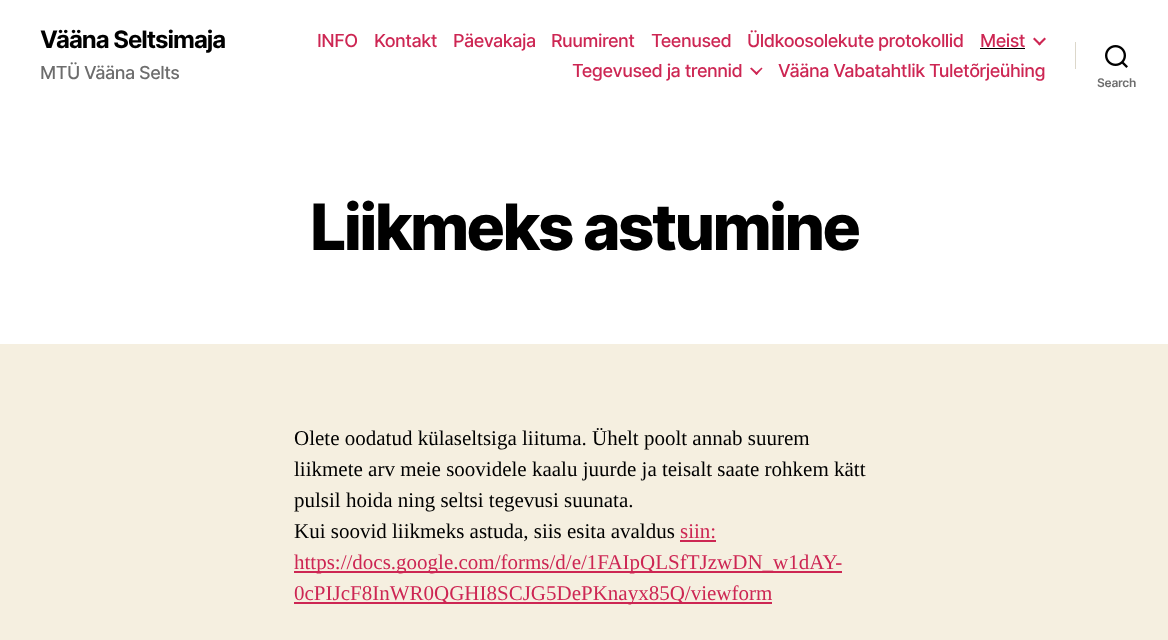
<svg xmlns="http://www.w3.org/2000/svg" width="1168" height="640">
	<rect width="100%" height="100%" fill="#F5EFE0" />
	<rect x="0" y="0" width="1168" height="344" fill="#FFFFFF" />
	<text x="40" y="48" font-family="Inter" font-size="24" font-weight="700" letter-spacing="-1" fill="#000000">Vääna Seltsimaja</text>
	<text x="40" y="79" font-family="Inter" font-size="18" font-weight="500" letter-spacing="-0.5" fill="#6D6D6D">MTÜ Vääna Selts</text>
	<g font-family="Inter" font-size="18" font-weight="500" letter-spacing="-0.5" fill="#CD2653">
		<text x="317" y="47">INFO</text>
		<text x="374" y="47">Kontakt</text>
		<text x="453" y="47">Päevakaja</text>
		<text x="551" y="47">Ruumirent</text>
		<text x="651" y="47">Teenused</text>
		<text x="747" y="47">Üldkoosolekute protokollid</text>
		<text x="980" y="47">Meist</text>
	</g>
	<rect x="980" y="48" width="45" height="1" fill="#000000" />
	<path d="M1033 39L1034.5 37.5L1041 44L1039.5 45.5Z" fill="#CD2653" />
	<path d="M1038 44L1044.5 37.5L1046 39L1039.5 45.5Z" fill="#CD2653" />
	<text x="572" y="77" font-family="Inter" font-size="18" font-weight="500" letter-spacing="-0.5" fill="#CD2653">Tegevused ja trennid</text>
	<path d="M750 68.5L751.5 67.5L758 73.5L756.5 75Z" fill="#CD2653" />
	<path d="M755 73.5L761.5 67.5L762.5 68.5L756.5 75Z" fill="#CD2653" />
	<text x="778" y="77" font-family="Inter" font-size="18" font-weight="500" letter-spacing="-0.5" fill="#CD2653">Vääna Vabatahtlik Tuletõrjeühing</text>
	<rect x="1075" y="42" width="1" height="27" fill="#DCD7CA" />
	<image x="1105" y="45" width="23" height="23" href="assets/img1.png" />
	<text x="1097" y="87" font-family="Inter" font-size="12" font-weight="600" letter-spacing="-0.25" fill="#6D6D6D">Search</text>
	<text x="310" y="250" font-family="Inter" font-size="64" font-weight="800" letter-spacing="-2.7" fill="#000000">Liikmeks astumine</text>
	<g font-family="Liberation Serif" font-size="21" fill="#000000">
		<text x="294" y="445">Olete oodatud külaseltsiga liituma. Ühelt poolt annab suurem</text>
		<text x="294" y="476">liikmete arv meie soovidele kaalu juurde ja teisalt saate rohkem kätt</text>
		<text x="294" y="507">pulsil hoida ning seltsi tegevusi suunata.</text>
		<text x="294" y="538">Kui soovid liikmeks astuda, siis esita avaldus</text>
	</g>
	<text x="680" y="538" font-family="Liberation Serif" font-size="21" fill="#CD2653">siin:</text>
	<rect x="680" y="540" width="36" height="2" fill="#CD2653" />
	<rect x="294" y="571" width="548" height="2" fill="#CD2653" />
	<text x="294" y="569" font-family="Liberation Serif" font-size="21" fill="#CD2653">https://docs.google.com/forms/d/e/1FAIpQLSfTJzwDN_w1dAY-</text>
	<rect x="294" y="602" width="478" height="2" fill="#CD2653" />
	<text x="294" y="600" font-family="Liberation Serif" font-size="21" fill="#CD2653">0cPIJcF8InWR0QGHI8SCJG5DePKnayx85Q/viewform</text>
</svg>
